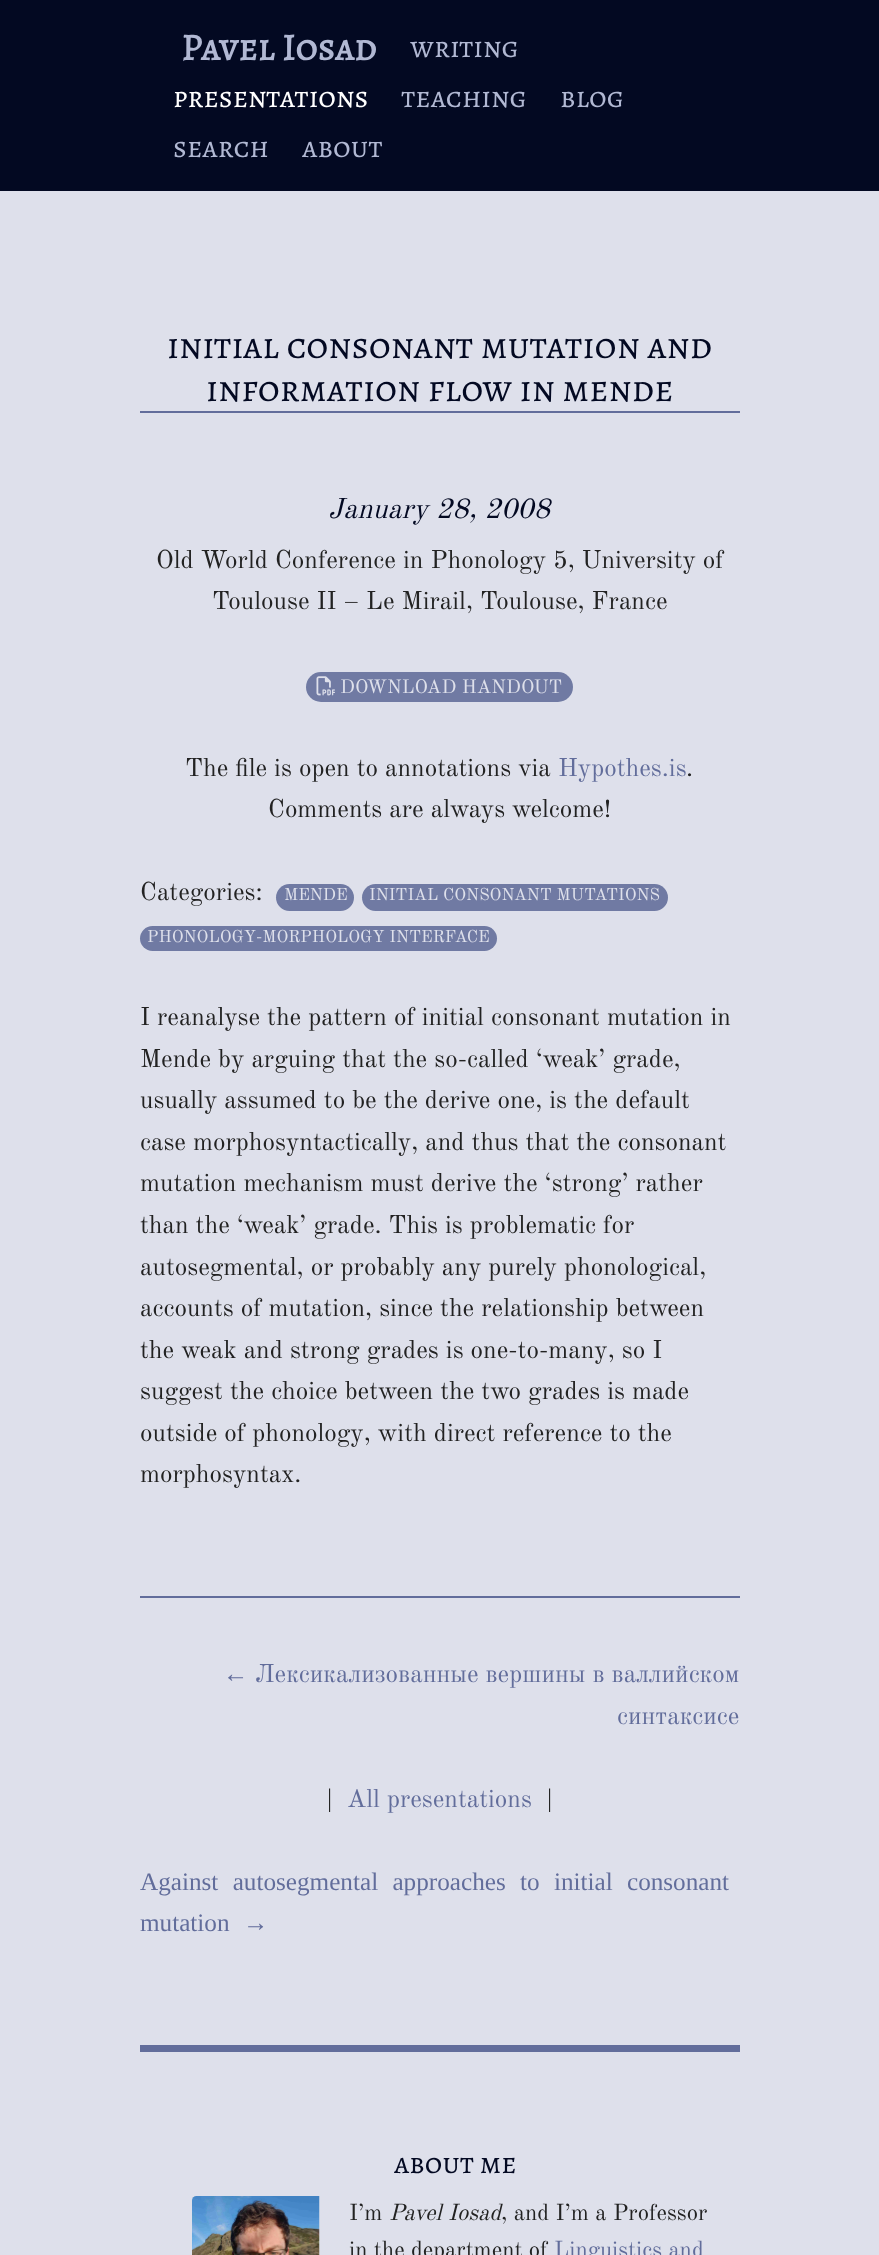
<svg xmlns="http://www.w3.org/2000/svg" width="879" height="2255">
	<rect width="100%" height="100%" fill="#DEE0EB" />
	<rect x="0" y="0" width="879" height="191" fill="#030922" />
	<text x="181" y="60" font-family="Alegreya SC" font-size="37.75" font-weight="700" fill="#B1B8D3">Pavel Iosad</text>
	<text x="410" y="57" font-family="Alegreya SC" font-size="30.25" fill="#B1B8D3">writing</text>
	<text x="173" y="107" font-family="Alegreya SC" font-size="30.25" fill="#FFFFFF">presentations</text>
	<g font-family="Alegreya SC" font-size="30.25" fill="#B1B8D3">
		<text x="401" y="107">teaching</text>
		<text x="560" y="107">blog</text>
		<text x="173" y="157">search</text>
		<text x="302" y="157">about</text>
	</g>
	<rect x="140" y="411" width="600" height="2" fill="#626D9B" />
	<g font-family="Alegreya SC" font-size="37.75" fill="#030922">
		<text x="167" y="358">initial consonant mutation and</text>
		<text x="206" y="401">information flow in mende</text>
	</g>
	<text x="328" y="518" font-family="Old Standard TT" font-size="28.25" font-style="italic" fill="#030922">January 28, 2008</text>
	<g font-family="Old Standard TT" font-size="25.2" fill="#222222">
		<text x="156" y="568">Old World Conference in Phonology 5, University of</text>
		<text x="212" y="609">Toulouse II – Le Mirail, Toulouse, France</text>
	</g>
	<rect x="306" y="672" width="267" height="30" rx="15" fill="#707AA3" />
	<image x="316" y="676" width="19" height="20" href="assets/img1.png" />
	<text x="340" y="693" font-family="Old Standard TT" font-size="19.1" fill="#DEE0EB">DOWNLOAD HANDOUT</text>
	<text x="185" y="776" font-family="Old Standard TT" font-size="25.2" fill="#222222">The file is open to annotations via</text>
	<text x="558" y="776" font-family="Old Standard TT" font-size="25.2" fill="#626D9B">Hypothes.is</text>
	<g font-family="Old Standard TT" font-size="25.2" fill="#222222">
		<text x="686" y="776">.</text>
		<text x="268" y="817">Comments are always welcome!</text>
		<text x="140" y="900">Categories:</text>
	</g>
	<rect x="276" y="884" width="78" height="27" rx="13.5" fill="#707AA3" />
	<text x="284" y="900" font-family="Old Standard TT" font-size="16.9" fill="#DEE0EB">MENDE</text>
	<rect x="362" y="884" width="306" height="27" rx="13.5" fill="#707AA3" />
	<text x="369" y="900" font-family="Old Standard TT" font-size="16.9" fill="#DEE0EB">INITIAL CONSONANT MUTATIONS</text>
	<rect x="140" y="926" width="357" height="25" rx="12.5" fill="#707AA3" />
	<text x="147" y="942" font-family="Old Standard TT" font-size="16.9" fill="#DEE0EB">PHONOLOGY-MORPHOLOGY INTERFACE</text>
	<g font-family="Old Standard TT" font-size="25.2" fill="#222222">
		<text x="140" y="1025">I reanalyse the pattern of initial consonant mutation in</text>
		<text x="140" y="1067">Mende by arguing that the so-called ‘weak’ grade,</text>
		<text x="140" y="1108">usually assumed to be the derive one, is the default</text>
		<text x="140" y="1150">case morphosyntactically, and thus that the consonant</text>
		<text x="140" y="1191">mutation mechanism must derive the ‘strong’ rather</text>
		<text x="140" y="1233">than the ‘weak’ grade. This is problematic for</text>
		<text x="140" y="1275">autosegmental, or probably any purely phonological,</text>
		<text x="140" y="1316">accounts of mutation, since the relationship between</text>
		<text x="140" y="1358">the weak and strong grades is one-to-many, so I</text>
		<text x="140" y="1399">suggest the choice between the two grades is made</text>
		<text x="140" y="1441">outside of phonology, with direct reference to the</text>
		<text x="140" y="1482">morphosyntax.</text>
	</g>
	<rect x="140" y="1596" width="600" height="2" fill="#626D9B" />
	<text x="223" y="1682" font-family="Liberation Serif" font-size="25.2" fill="#626D9B">←</text>
	<g font-family="Old Standard TT" font-size="25.2" fill="#626D9B">
		<text x="255" y="1682">Лексикализованные вершины в валлийском</text>
		<text x="617" y="1724">синтаксисе</text>
	</g>
	<text x="326" y="1807" font-family="Old Standard TT" font-size="25.2" fill="#222222">|</text>
	<text x="347" y="1807" font-family="Old Standard TT" font-size="25.2" fill="#626D9B">All presentations</text>
	<text x="546" y="1807" font-family="Old Standard TT" font-size="25.2" fill="#222222">|</text>
	<g font-family="Liberation Serif" font-size="25.2" fill="#626D9B">
		<text x="140" y="1890" word-spacing="8">Against autosegmental approaches to initial consonant</text>
		<text x="140" y="1931">mutation</text>
		<text x="243" y="1931">→</text>
	</g>
	<rect x="140" y="2045" width="600" height="7" fill="#626D9B" />
	<text x="394" y="2173" font-family="Alegreya SC" font-size="30" fill="#030922">about me</text>
	<image x="192" y="2196" width="128" height="59" href="assets/img2.png" />
	<text x="349" y="2220" font-family="Old Standard TT" font-size="22.75" fill="#222222">I’m</text>
	<text x="389" y="2220" font-family="Old Standard TT" font-size="22.75" font-style="italic" fill="#222222">Pavel Iosad</text>
	<g font-family="Old Standard TT" font-size="22.75" fill="#222222">
		<text x="501" y="2220">, and I’m a Professor</text>
		<text x="349" y="2257">in the department of</text>
	</g>
	<text x="554" y="2257" font-family="Old Standard TT" font-size="22.75" fill="#626D9B">Linguistics and</text>
</svg>
